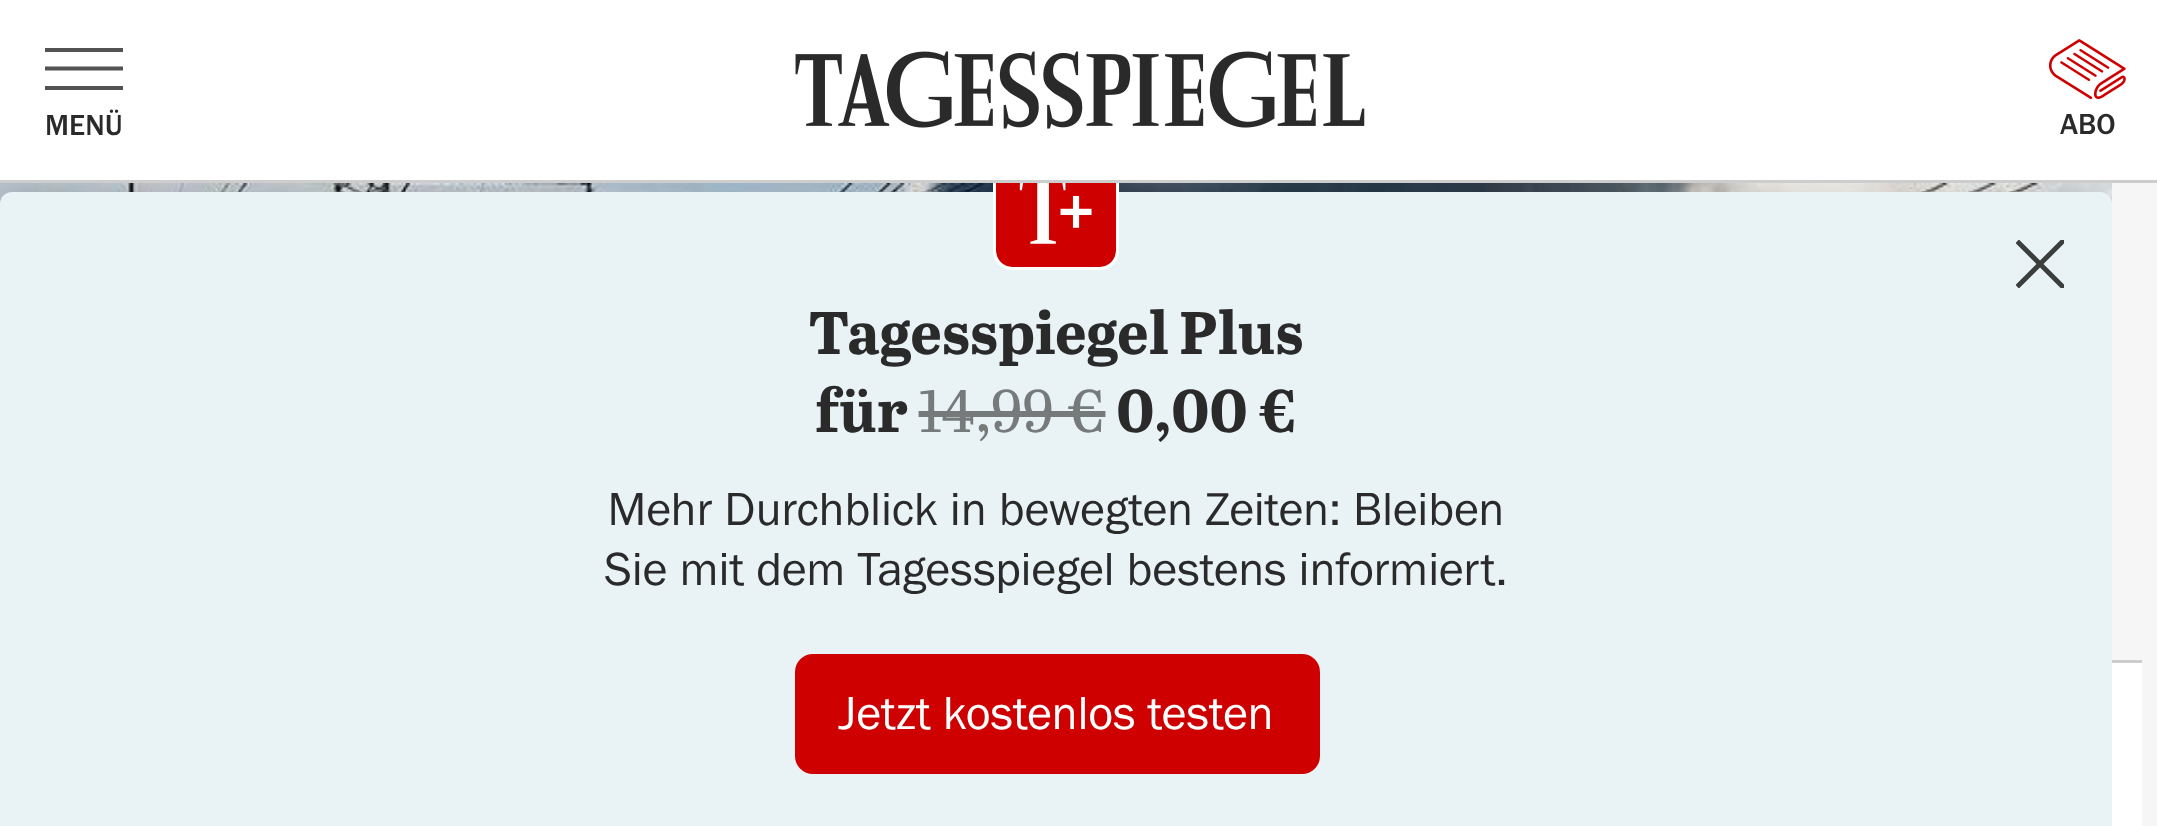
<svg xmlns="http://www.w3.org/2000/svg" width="2157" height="826">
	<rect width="100%" height="100%" fill="#F6F6F6" />
	<rect x="0" y="0" width="2157" height="180" fill="#FFFFFF" />
	<rect x="0" y="180" width="2157" height="3" fill="#CDCDCD" />
	<path d="M45 50H123M45 68.5H123M45 88H123" fill="none" stroke="#535353" stroke-width="3.9" />
	<text x="45" y="135" font-family="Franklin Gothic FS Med" font-size="30" font-weight="500" fill="#2A2A2A">MENÜ</text>
	<image x="795" y="51" width="570" height="78" href="assets/img1.png" />
	<image x="2049" y="39" width="77" height="60" href="assets/img2.png" />
	<text x="2060" y="134" font-family="Franklin Gothic FS Med" font-size="30" font-weight="500" fill="#2A2A2A">ABO</text>
	<image x="0" y="183" width="2112" height="21" href="assets/img3.png" />
	<rect x="2112" y="663" width="30" height="163" fill="#FFFFFF" />
	<rect x="2112" y="660" width="30" height="3" fill="#CDCDCD" />
	<image x="0" y="183" width="2112" height="643" href="assets/img4.png" />
</svg>
